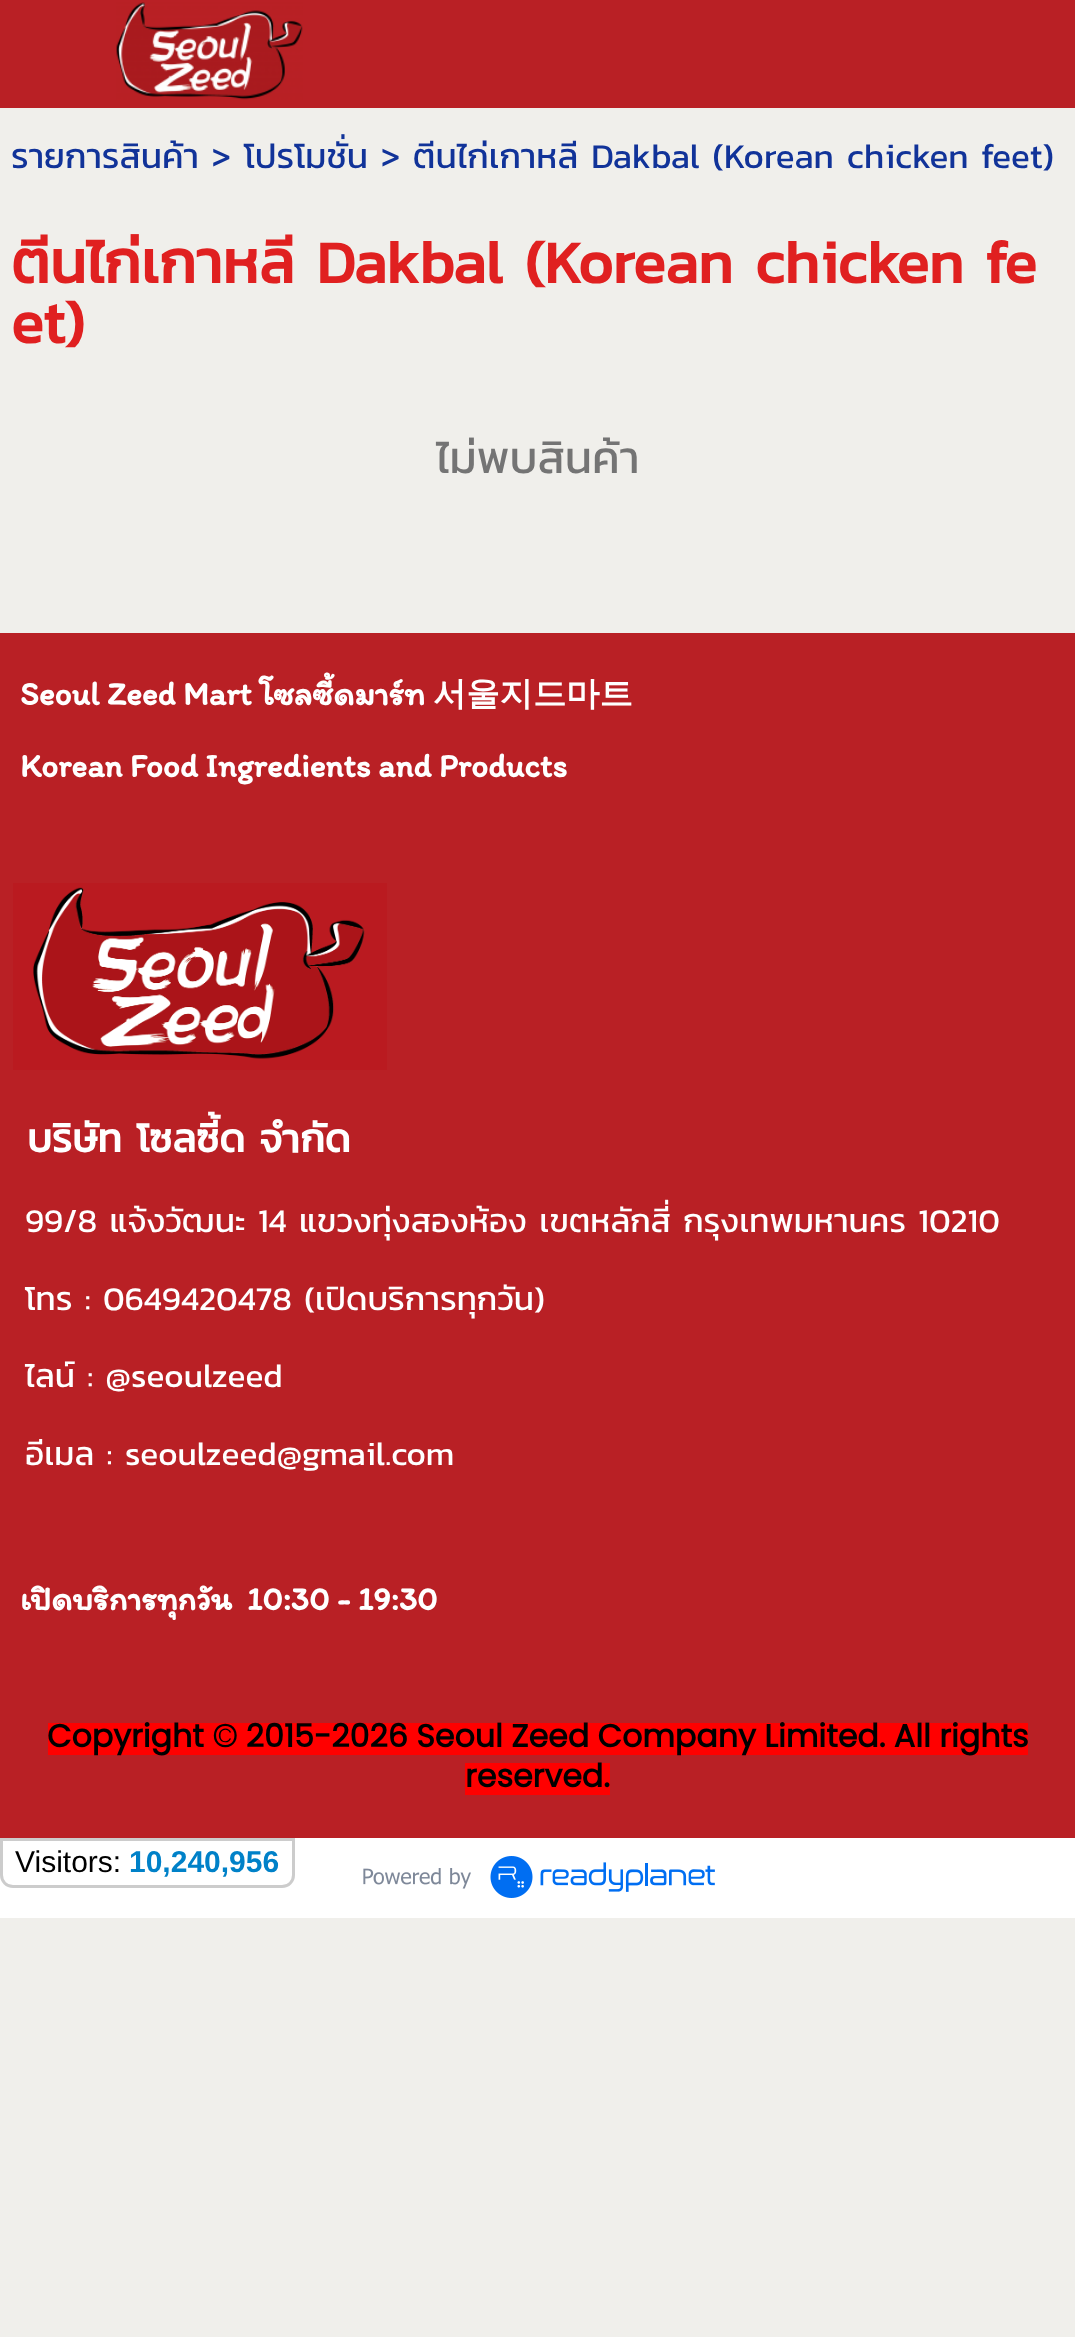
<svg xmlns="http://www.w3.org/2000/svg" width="1075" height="2337">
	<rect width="100%" height="100%" fill="#F0EFEB" />
	<rect x="0" y="0" width="1075" height="108" fill="#B92025" />
	<image x="116" y="2" width="187" height="98" href="assets/img1.png" />
	<text x="11" y="168" font-family="Kanit" font-size="35" fill="#113399">รายการสินค้า &gt; โปรโมชั่น &gt; ตีนไก่เกาหลี Dakbal (Korean chicken feet)</text>
	<g font-family="Kanit" font-size="60" font-weight="700" fill="#E02020">
		<text x="11" y="283">ตีนไก่เกาหลี Dakbal (Korean chicken fe</text>
		<text x="11" y="343">et)</text>
	</g>
	<text x="436" y="473" font-family="Kanit" font-size="45" fill="#747474">ไม่พบสินค้า</text>
	<rect x="0" y="633" width="1075" height="1205" fill="#B92025" />
	<text x="20" y="705" font-family="Itim" font-size="33.3" font-weight="700" fill="#FFFFFF">Seoul Zeed Mart โซลซี้ดมาร์ท</text>
	<text x="433" y="705" font-family="WenQuanYi Zen Hei" font-size="33.3" font-weight="700" fill="#FFFFFF">서울지드마트</text>
	<text x="20" y="777" font-family="Itim" font-size="33.3" font-weight="700" fill="#FFFFFF">Korean Food Ingredients and Products</text>
	<image x="13" y="883" width="374" height="187" href="assets/img2.png" />
	<text x="27" y="1152" font-family="Kanit" font-size="40" font-weight="700" fill="#FFFFFF">บริษัท โซลซี้ด จำกัด</text>
	<g font-family="Kanit" font-size="33.3" fill="#FFFFFF">
		<text x="25" y="1232">99/8 แจ้งวัฒนะ 14 แขวงทุ่งสองห้อง เขตหลักสี่ กรุงเทพมหานคร 10210</text>
		<text x="25" y="1310">โทร : 0649420478 (เปิดบริการทุกวัน)</text>
		<text x="25" y="1387">ไลน์ : @seoulzeed</text>
		<text x="25" y="1465">อีเมล : seoulzeed@gmail.com</text>
	</g>
	<text x="20" y="1610" font-family="Itim" font-size="33.3" font-weight="700" fill="#FFFFFF" xml:space="preserve">เปิดบริการทุกวัน  10:30 - 19:30</text>
	<rect x="48" y="1723" width="980" height="32" fill="#FF0000" />
	<text x="47" y="1747" font-family="Poppins" font-size="31.7" font-weight="700" fill="#000000">Copyright © 2015-2026 Seoul Zeed Company Limited. All rights</text>
	<rect x="465" y="1763" width="145" height="32" fill="#FF0000" />
	<text x="465" y="1787" font-family="Poppins" font-size="31.7" font-weight="700" fill="#000000">reserved.</text>
	<rect x="0" y="1838" width="1075" height="80" fill="#FFFFFF" />
	<image x="363" y="1856" width="352" height="42" href="assets/img3.png" />
	<path d="M1.5 1839.5H293.5V1875C293.5 1881.5 288.5 1886.5 282 1886.5H13C6.5 1886.5 1.5 1881.5 1.5 1875Z" fill="none" stroke="#CCCCCC" stroke-width="3" />
	<text x="15" y="1872" font-family="Liberation Sans" font-size="30" fill="#000000">Visitors:</text>
	<text x="129" y="1872" font-family="Liberation Sans" font-size="30" font-weight="700" fill="#0081C8">10,240,956</text>
</svg>
